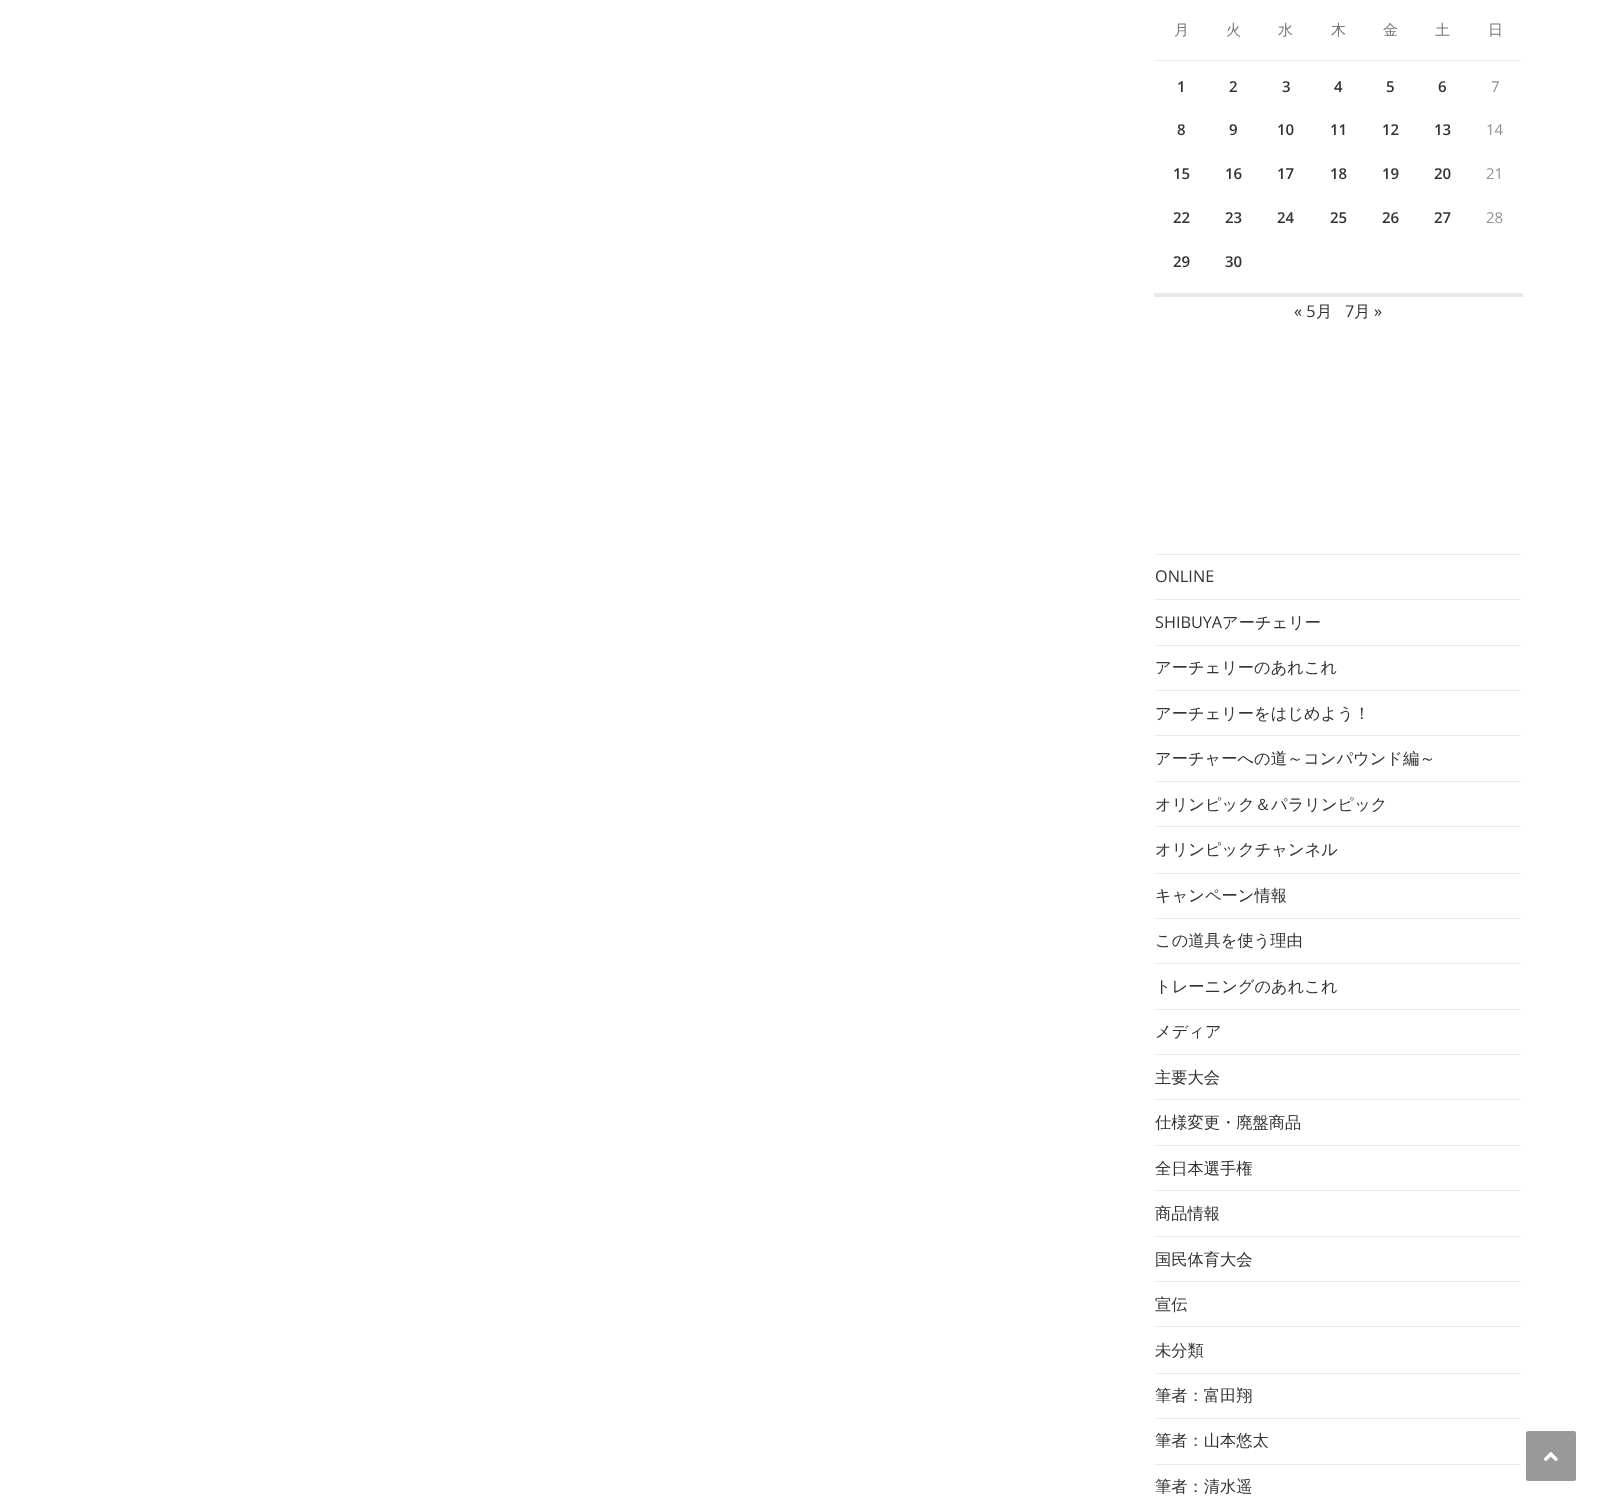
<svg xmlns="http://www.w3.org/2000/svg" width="1601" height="1506">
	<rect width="100%" height="100%" fill="#FFFFFF" />
	<g font-family="WenQuanYi Zen Hei" font-size="15" font-weight="500" fill="#777777">
		<text x="1174" y="35">月</text>
		<text x="1226" y="35">火</text>
		<text x="1278" y="35">水</text>
		<text x="1331" y="35">木</text>
		<text x="1383" y="35">金</text>
		<text x="1435" y="35">土</text>
	</g>
	<rect x="1155" y="60" width="366" height="1" fill="#E9E9E9" />
	<text x="1488" y="35" font-family="WenQuanYi Zen Hei" font-size="15" font-weight="500" fill="#777777">日</text>
	<rect x="1154" y="293" width="369" height="4" fill="#E9E9E9" />
	<g font-family="Open Sans" font-size="15" font-weight="600" fill="#333333">
		<text x="1177" y="92">1</text>
		<text x="1229" y="92">2</text>
		<text x="1282" y="92">3</text>
		<text x="1334" y="92">4</text>
		<text x="1386" y="92">5</text>
		<text x="1438" y="92">6</text>
	</g>
	<text x="1491" y="92" font-family="Open Sans" font-size="15" fill="#929292">7</text>
	<g font-family="Open Sans" font-size="15" font-weight="600" fill="#333333">
		<text x="1177" y="135">8</text>
		<text x="1229" y="135">9</text>
		<text x="1277" y="135">10</text>
		<text x="1330" y="135">11</text>
		<text x="1382" y="135">12</text>
		<text x="1434" y="135">13</text>
	</g>
	<text x="1486" y="135" font-family="Open Sans" font-size="15" fill="#929292">14</text>
	<g font-family="Open Sans" font-size="15" font-weight="600" fill="#333333">
		<text x="1173" y="179">15</text>
		<text x="1225" y="179">16</text>
		<text x="1277" y="179">17</text>
		<text x="1330" y="179">18</text>
		<text x="1382" y="179">19</text>
		<text x="1434" y="179">20</text>
	</g>
	<text x="1486" y="179" font-family="Open Sans" font-size="15" fill="#929292">21</text>
	<g font-family="Open Sans" font-size="15" font-weight="600" fill="#333333">
		<text x="1173" y="223">22</text>
		<text x="1225" y="223">23</text>
		<text x="1277" y="223">24</text>
		<text x="1330" y="223">25</text>
		<text x="1382" y="223">26</text>
		<text x="1434" y="223">27</text>
	</g>
	<text x="1486" y="223" font-family="Open Sans" font-size="15" fill="#929292">28</text>
	<g font-family="Open Sans" font-size="15" font-weight="600" fill="#333333">
		<text x="1173" y="267">29</text>
		<text x="1225" y="267">30</text>
	</g>
	<text x="1294" y="317" font-family="Open Sans" font-size="16.25" fill="#333333">« 5</text>
	<text x="1316" y="317" font-family="WenQuanYi Zen Hei" font-size="16.25" font-weight="500" fill="#333333">月</text>
	<text x="1345" y="317" font-family="Open Sans" font-size="16.25" fill="#333333">7</text>
	<text x="1354" y="317" font-family="WenQuanYi Zen Hei" font-size="16.25" font-weight="500" fill="#333333">月</text>
	<text x="1374" y="317" font-family="Open Sans" font-size="16.25" fill="#333333">»</text>
	<rect x="1155" y="554" width="366" height="1" fill="#E9E9E9" />
	<rect x="1155" y="599" width="366" height="1" fill="#E9E9E9" />
	<text x="1155" y="582" font-family="Open Sans" font-size="16.25" fill="#333333">ONLINE</text>
	<rect x="1155" y="645" width="366" height="1" fill="#E9E9E9" />
	<text x="1155" y="628" font-family="Open Sans" font-size="16.25" fill="#333333">SHIBUYA</text>
	<text x="1222" y="628" font-family="WenQuanYi Zen Hei" font-size="16.25" font-weight="500" fill="#333333">アーチェリー</text>
	<rect x="1155" y="690" width="366" height="1" fill="#E9E9E9" />
	<text x="1155" y="673" font-family="WenQuanYi Zen Hei" font-size="16.25" font-weight="500" fill="#333333">アーチェリーのあれこれ</text>
	<rect x="1155" y="735" width="366" height="1" fill="#E9E9E9" />
	<text x="1155" y="719" font-family="WenQuanYi Zen Hei" font-size="16.25" font-weight="500" fill="#333333">アーチェリーをはじめよう！</text>
	<rect x="1155" y="781" width="366" height="1" fill="#E9E9E9" />
	<text x="1155" y="764" font-family="WenQuanYi Zen Hei" font-size="16.25" font-weight="500" fill="#333333">アーチャーへの道～コンパウンド編～</text>
	<rect x="1155" y="826" width="366" height="1" fill="#E9E9E9" />
	<text x="1155" y="810" font-family="WenQuanYi Zen Hei" font-size="16.25" font-weight="500" fill="#333333">オリンピック＆パラリンピック</text>
	<rect x="1155" y="873" width="366" height="1" fill="#E9E9E9" />
	<text x="1155" y="855" font-family="WenQuanYi Zen Hei" font-size="16.25" font-weight="500" fill="#333333">オリンピックチャンネル</text>
	<rect x="1155" y="918" width="366" height="1" fill="#E9E9E9" />
	<text x="1155" y="901" font-family="WenQuanYi Zen Hei" font-size="16.25" font-weight="500" fill="#333333">キャンペーン情報</text>
	<rect x="1155" y="963" width="366" height="1" fill="#E9E9E9" />
	<text x="1155" y="946" font-family="WenQuanYi Zen Hei" font-size="16.25" font-weight="500" fill="#333333">この道具を使う理由</text>
	<rect x="1155" y="1009" width="366" height="1" fill="#E9E9E9" />
	<text x="1155" y="992" font-family="WenQuanYi Zen Hei" font-size="16.25" font-weight="500" fill="#333333">トレーニングのあれこれ</text>
	<rect x="1155" y="1054" width="366" height="1" fill="#E9E9E9" />
	<text x="1155" y="1037" font-family="WenQuanYi Zen Hei" font-size="16.25" font-weight="500" fill="#333333">メディア</text>
	<rect x="1155" y="1099" width="366" height="1" fill="#E9E9E9" />
	<text x="1155" y="1083" font-family="WenQuanYi Zen Hei" font-size="16.25" font-weight="500" fill="#333333">主要大会</text>
	<rect x="1155" y="1145" width="366" height="1" fill="#E9E9E9" />
	<text x="1155" y="1128" font-family="WenQuanYi Zen Hei" font-size="16.25" font-weight="500" fill="#333333">仕様変更・廃盤商品</text>
	<rect x="1155" y="1190" width="366" height="1" fill="#E9E9E9" />
	<text x="1155" y="1174" font-family="WenQuanYi Zen Hei" font-size="16.25" font-weight="500" fill="#333333">全日本選手権</text>
	<rect x="1155" y="1236" width="366" height="1" fill="#E9E9E9" />
	<text x="1155" y="1219" font-family="WenQuanYi Zen Hei" font-size="16.25" font-weight="500" fill="#333333">商品情報</text>
	<rect x="1155" y="1281" width="366" height="1" fill="#E9E9E9" />
	<text x="1155" y="1265" font-family="WenQuanYi Zen Hei" font-size="16.25" font-weight="500" fill="#333333">国民体育大会</text>
	<rect x="1155" y="1326" width="366" height="1" fill="#E9E9E9" />
	<text x="1155" y="1310" font-family="WenQuanYi Zen Hei" font-size="16.25" font-weight="500" fill="#333333">宣伝</text>
	<rect x="1155" y="1373" width="366" height="1" fill="#E9E9E9" />
	<text x="1155" y="1356" font-family="WenQuanYi Zen Hei" font-size="16.25" font-weight="500" fill="#333333">未分類</text>
	<rect x="1155" y="1418" width="366" height="1" fill="#E9E9E9" />
	<text x="1155" y="1401" font-family="WenQuanYi Zen Hei" font-size="16.25" font-weight="500" fill="#333333">筆者：富田翔</text>
	<rect x="1155" y="1464" width="366" height="1" fill="#E9E9E9" />
	<g font-family="WenQuanYi Zen Hei" font-size="16.25" font-weight="500" fill="#333333">
		<text x="1155" y="1446">筆者：山本悠太</text>
		<text x="1155" y="1492">筆者：清水遥</text>
	</g>
	<rect x="1526" y="1431" width="50" height="50" rx="2.5" fill="#999999" />
	<image x="1543" y="1452" width="15" height="9" href="assets/img1.png" />
</svg>
